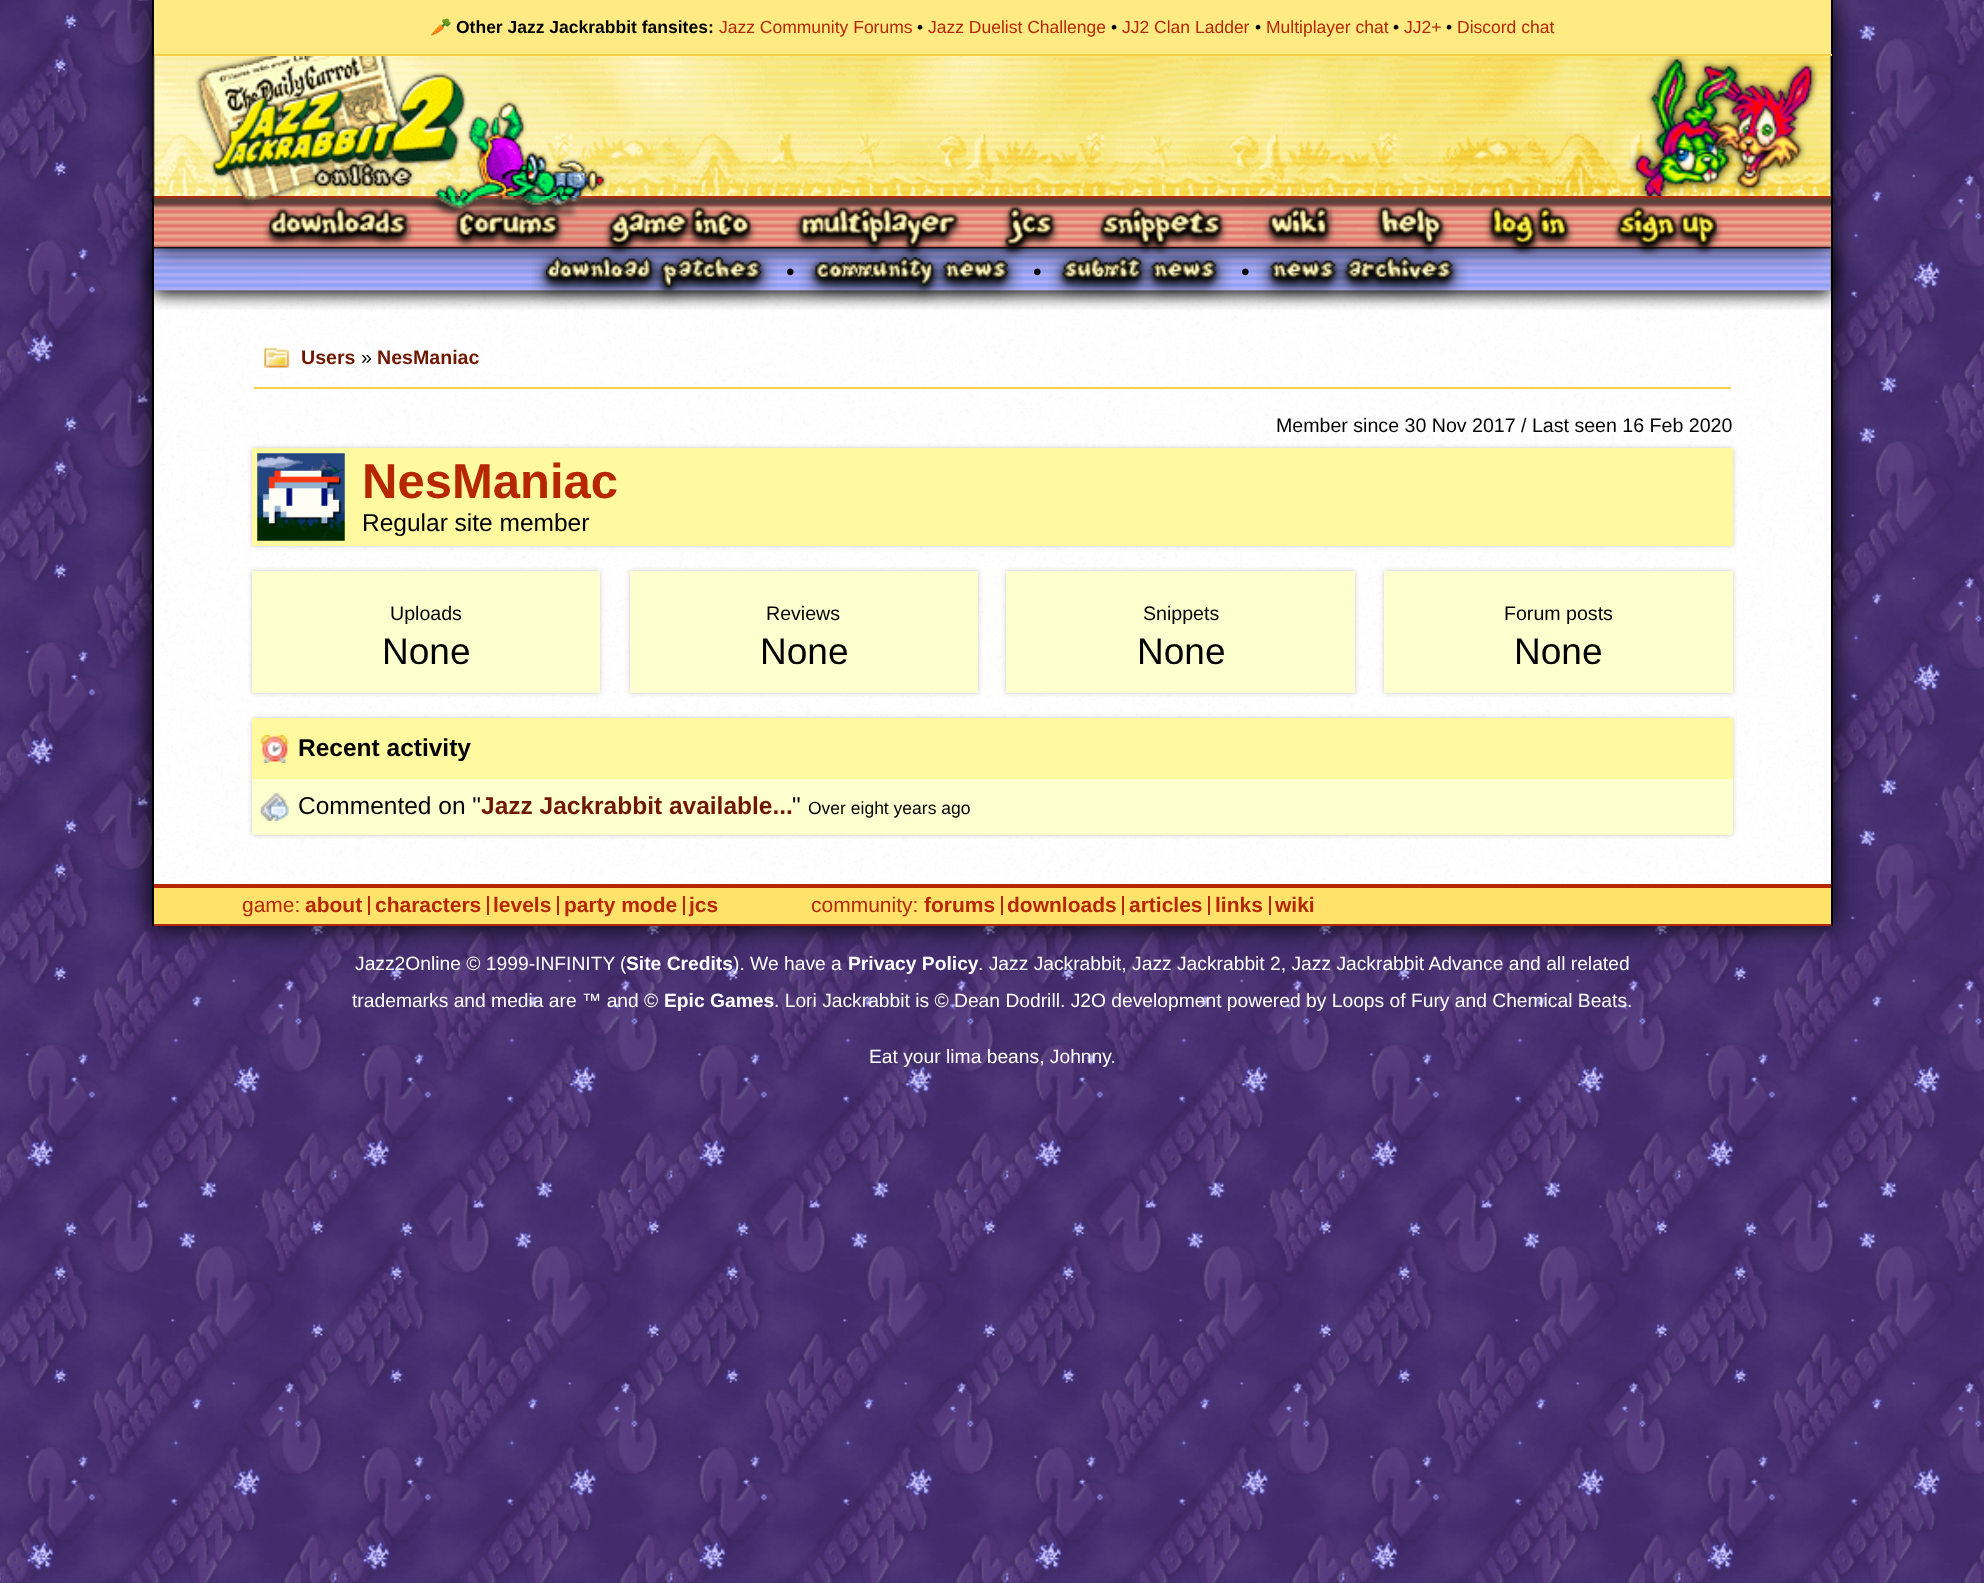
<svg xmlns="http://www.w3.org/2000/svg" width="1984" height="1583">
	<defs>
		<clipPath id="clip1"><path d="M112 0H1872V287H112ZM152 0H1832V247H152Z" clip-rule="evenodd" /></clipPath>
	</defs>
	<rect width="100%" height="100%" fill="#FFFFFF" />
	<image x="0" y="0" width="1984" height="1583" href="assets/img1.png" />
	<rect x="152" y="247" width="1680" height="679" fill="#000000" filter="blur(13px)" />
	<image x="154" y="246" width="1677" height="638" href="assets/img14.png" />
	<rect x="1831" y="247" width="2" height="679" fill="#000000" />
	<rect x="152" y="247" width="2" height="679" fill="#000000" />
	<rect x="154" y="247" width="1677" height="44" fill="#FFFCB4" />
	<image x="140" y="234" width="1705" height="76" href="assets/img15.png" />
	<image x="531" y="248" width="246" height="58" href="assets/img16.png" />
	<image x="799" y="248" width="224" height="57" href="assets/img17.png" />
	<image x="1048" y="248" width="184" height="55" href="assets/img18.png" />
	<image x="1256" y="248" width="212" height="55" href="assets/img19.png" />
	<g clip-path="url(#clip1)">
		<rect x="152" y="0" width="1680" height="247" fill="#000000" filter="blur(13px)" />
	</g>
	<rect x="1831" y="0" width="2" height="247" fill="#000000" />
	<image x="152" y="56" width="1679" height="140" href="assets/img2.png" />
	<rect x="154" y="0" width="1677" height="54" fill="#FFEA84" />
	<rect x="152" y="54" width="1680" height="2" fill="#FFCD47" />
	<rect x="152" y="0" width="2" height="56" fill="#000000" />
	<text x="430" y="33" font-family="Noto Color Emoji" font-size="17.5" font-weight="700" fill="#000000">🥕</text>
	<text x="456" y="33" font-family="Liberation Sans" font-size="17.5" font-weight="700" fill="#000000">Other Jazz Jackrabbit fansites:</text>
	<text x="719" y="33" font-family="Liberation Sans" font-size="17.5" fill="#B62700">Jazz Community Forums</text>
	<text x="917" y="33" font-family="Liberation Sans" font-size="17.5" fill="#000000">•</text>
	<text x="928" y="33" font-family="Liberation Sans" font-size="17.5" fill="#B62700">Jazz Duelist Challenge</text>
	<text x="1111" y="33" font-family="Liberation Sans" font-size="17.5" fill="#000000">•</text>
	<text x="1122" y="33" font-family="Liberation Sans" font-size="17.5" fill="#B62700">JJ2 Clan Ladder</text>
	<text x="1255" y="33" font-family="Liberation Sans" font-size="17.5" fill="#000000">•</text>
	<text x="1266" y="33" font-family="Liberation Sans" font-size="17.5" fill="#B62700">Multiplayer chat</text>
	<text x="1393" y="33" font-family="Liberation Sans" font-size="17.5" fill="#000000">•</text>
	<text x="1404" y="33" font-family="Liberation Sans" font-size="17.5" fill="#B62700">JJ2+</text>
	<text x="1446" y="33" font-family="Liberation Sans" font-size="17.5" fill="#000000">•</text>
	<text x="1457" y="33" font-family="Liberation Sans" font-size="17.5" fill="#B62700">Discord chat</text>
	<image x="154" y="196" width="1677" height="51" href="assets/img3.png" />
	<rect x="152" y="196" width="2" height="51" fill="#000000" />
	<image x="263" y="206" width="151" height="41" href="assets/img4.png" />
	<image x="451" y="208" width="115" height="39" href="assets/img5.png" />
	<image x="603" y="206" width="154" height="50" href="assets/img6.png" />
	<image x="792" y="206" width="171" height="52" href="assets/img7.png" />
	<image x="999" y="206" width="61" height="52" href="assets/img8.png" />
	<image x="1095" y="206" width="133" height="50" href="assets/img9.png" />
	<image x="1263" y="206" width="72" height="41" href="assets/img10.png" />
	<image x="1372" y="206" width="77" height="50" href="assets/img11.png" />
	<image x="1484" y="206" width="90" height="51" href="assets/img12.png" />
	<image x="1611" y="206" width="112" height="51" href="assets/img13.png" />
	<g font-family="Liberation Sans" font-size="24.5" fill="#000000">
		<text x="786" y="280">•</text>
		<text x="1033" y="280">•</text>
		<text x="1241" y="280">•</text>
	</g>
	<image x="263" y="347" width="27" height="21" href="assets/img20.png" />
	<rect x="254" y="387" width="1477" height="2" fill="#FFCD47" />
	<text x="301" y="364" font-family="Liberation Sans" font-size="19.6" font-weight="700" fill="#6F1700">Users</text>
	<text x="361" y="364" font-family="Liberation Sans" font-size="19.6" fill="#000000">»</text>
	<text x="377" y="364" font-family="Liberation Sans" font-size="19.6" font-weight="700" fill="#6F1700">NesManiac</text>
	<text x="1276" y="432" font-family="Liberation Sans" font-size="19.6" fill="#000000">Member since 30 Nov 2017 / Last seen 16 Feb 2020</text>
	<rect x="252" y="448" width="1481" height="98" fill="#CCCCCC" filter="blur(2.5px)" />
	<rect x="252" y="448" width="1481" height="98" fill="#FFF9A0" />
	<image x="257" y="453" width="88" height="88" href="assets/img21.png" />
	<text x="362" y="498" font-family="Liberation Sans" font-size="49" font-weight="700" fill="#B62700">NesManiac</text>
	<text x="362" y="531" font-family="Liberation Sans" font-size="24.5" fill="#000000">Regular site member</text>
	<rect x="252" y="571" width="348" height="122" fill="#CCCCCC" filter="blur(2.5px)" />
	<rect x="252" y="571" width="348" height="122" fill="#FEFFCF" />
	<text x="390" y="620" font-family="Liberation Sans" font-size="19.6" fill="#000000">Uploads</text>
	<text x="382" y="664" font-family="Liberation Sans" font-size="37" fill="#000000">None</text>
	<rect x="630" y="571" width="348" height="122" fill="#CCCCCC" filter="blur(2.5px)" />
	<rect x="630" y="571" width="348" height="122" fill="#FEFFCF" />
	<text x="766" y="620" font-family="Liberation Sans" font-size="19.6" fill="#000000">Reviews</text>
	<text x="760" y="664" font-family="Liberation Sans" font-size="37" fill="#000000">None</text>
	<rect x="1006" y="571" width="349" height="122" fill="#CCCCCC" filter="blur(2.5px)" />
	<rect x="1006" y="571" width="349" height="122" fill="#FEFFCF" />
	<text x="1143" y="620" font-family="Liberation Sans" font-size="19.6" fill="#000000">Snippets</text>
	<text x="1137" y="664" font-family="Liberation Sans" font-size="37" fill="#000000">None</text>
	<rect x="1384" y="571" width="349" height="122" fill="#CCCCCC" filter="blur(2.5px)" />
	<rect x="1384" y="571" width="349" height="122" fill="#FEFFCF" />
	<text x="1504" y="620" font-family="Liberation Sans" font-size="19.6" fill="#000000">Forum posts</text>
	<text x="1514" y="664" font-family="Liberation Sans" font-size="37" fill="#000000">None</text>
	<rect x="252" y="718" width="1481" height="117" rx="4" fill="#CCCCCC" filter="blur(2.5px)" />
	<rect x="252" y="718" width="1481" height="117" rx="4" fill="#FEFFCF" />
	<rect x="252" y="718" width="1481" height="61" fill="#FFF9A0" />
	<image x="260" y="735" width="29" height="28" href="assets/img22.png" />
	<text x="298" y="756" font-family="Liberation Sans" font-size="24.5" font-weight="700" fill="#000000">Recent activity</text>
	<image x="260" y="792" width="29" height="29" href="assets/img23.png" />
	<text x="298" y="814" font-family="Liberation Sans" font-size="24.5" fill="#000000">Commented on "</text>
	<text x="481" y="814" font-family="Liberation Sans" font-size="24.5" font-weight="700" fill="#6F1700">Jazz Jackrabbit available...</text>
	<text x="792" y="814" font-family="Liberation Sans" font-size="24.5" fill="#000000">"</text>
	<text x="808" y="814" font-family="Liberation Sans" font-size="17.5" fill="#000000">Over eight years ago</text>
	<rect x="154" y="888" width="1677" height="36" fill="#FFE26A" />
	<rect x="154" y="884" width="1677" height="4" fill="#B62700" />
	<rect x="154" y="924" width="1677" height="2" fill="#B62700" />
	<text x="242" y="912" font-family="Liberation Sans" font-size="21" fill="#B62700">game:</text>
	<rect x="368" y="896" width="2" height="19" fill="#B62700" />
	<text x="305" y="912" font-family="Liberation Sans" font-size="21" font-weight="700" fill="#B62700">about</text>
	<rect x="487" y="896" width="2" height="19" fill="#B62700" />
	<text x="375" y="912" font-family="Liberation Sans" font-size="21" font-weight="700" fill="#B62700">characters</text>
	<rect x="557" y="896" width="2" height="19" fill="#B62700" />
	<text x="493" y="912" font-family="Liberation Sans" font-size="21" font-weight="700" fill="#B62700">levels</text>
	<rect x="683" y="896" width="2" height="19" fill="#B62700" />
	<g font-family="Liberation Sans" font-size="21" font-weight="700" fill="#B62700">
		<text x="564" y="912">party mode</text>
		<text x="689" y="912">jcs</text>
	</g>
	<text x="811" y="912" font-family="Liberation Sans" font-size="21" fill="#B62700">community:</text>
	<rect x="1001" y="896" width="2" height="19" fill="#B62700" />
	<text x="924" y="912" font-family="Liberation Sans" font-size="21" font-weight="700" fill="#B62700">forums</text>
	<rect x="1122" y="896" width="2" height="19" fill="#B62700" />
	<text x="1007" y="912" font-family="Liberation Sans" font-size="21" font-weight="700" fill="#B62700">downloads</text>
	<rect x="1208" y="896" width="2" height="19" fill="#B62700" />
	<text x="1129" y="912" font-family="Liberation Sans" font-size="21" font-weight="700" fill="#B62700">articles</text>
	<rect x="1269" y="896" width="2" height="19" fill="#B62700" />
	<g font-family="Liberation Sans" font-size="21" font-weight="700" fill="#B62700">
		<text x="1215" y="912">links</text>
		<text x="1275" y="912">wiki</text>
	</g>
	<g font-family="Liberation Sans" font-size="19.25" fill="#FFFFFF">
		<text x="355" y="970">Jazz2Online © 1999-INFINITY</text>
		<text x="620" y="970">(</text>
	</g>
	<text x="626" y="970" font-family="Liberation Sans" font-size="19.25" font-weight="700" fill="#FFFFFF">Site Credits</text>
	<text x="733" y="970" font-family="Liberation Sans" font-size="19.25" fill="#FFFFFF">). We have a</text>
	<text x="848" y="970" font-family="Liberation Sans" font-size="19.25" font-weight="700" fill="#FFFFFF">Privacy Policy</text>
	<g font-family="Liberation Sans" font-size="19.25" fill="#FFFFFF">
		<text x="978" y="970">. Jazz Jackrabbit, Jazz Jackrabbit 2, Jazz Jackrabbit Advance and all related</text>
		<text x="352" y="1007">trademarks and media are ™ and ©</text>
	</g>
	<text x="664" y="1007" font-family="Liberation Sans" font-size="19.25" font-weight="700" fill="#FFFFFF">Epic Games</text>
	<g font-family="Liberation Sans" font-size="19.25" fill="#FFFFFF">
		<text x="774" y="1007">. Lori Jackrabbit is © Dean Dodrill. J2O development powered by Loops of Fury and Chemical Beats.</text>
		<text x="869" y="1063">Eat your lima beans, Johnny.</text>
	</g>
</svg>
